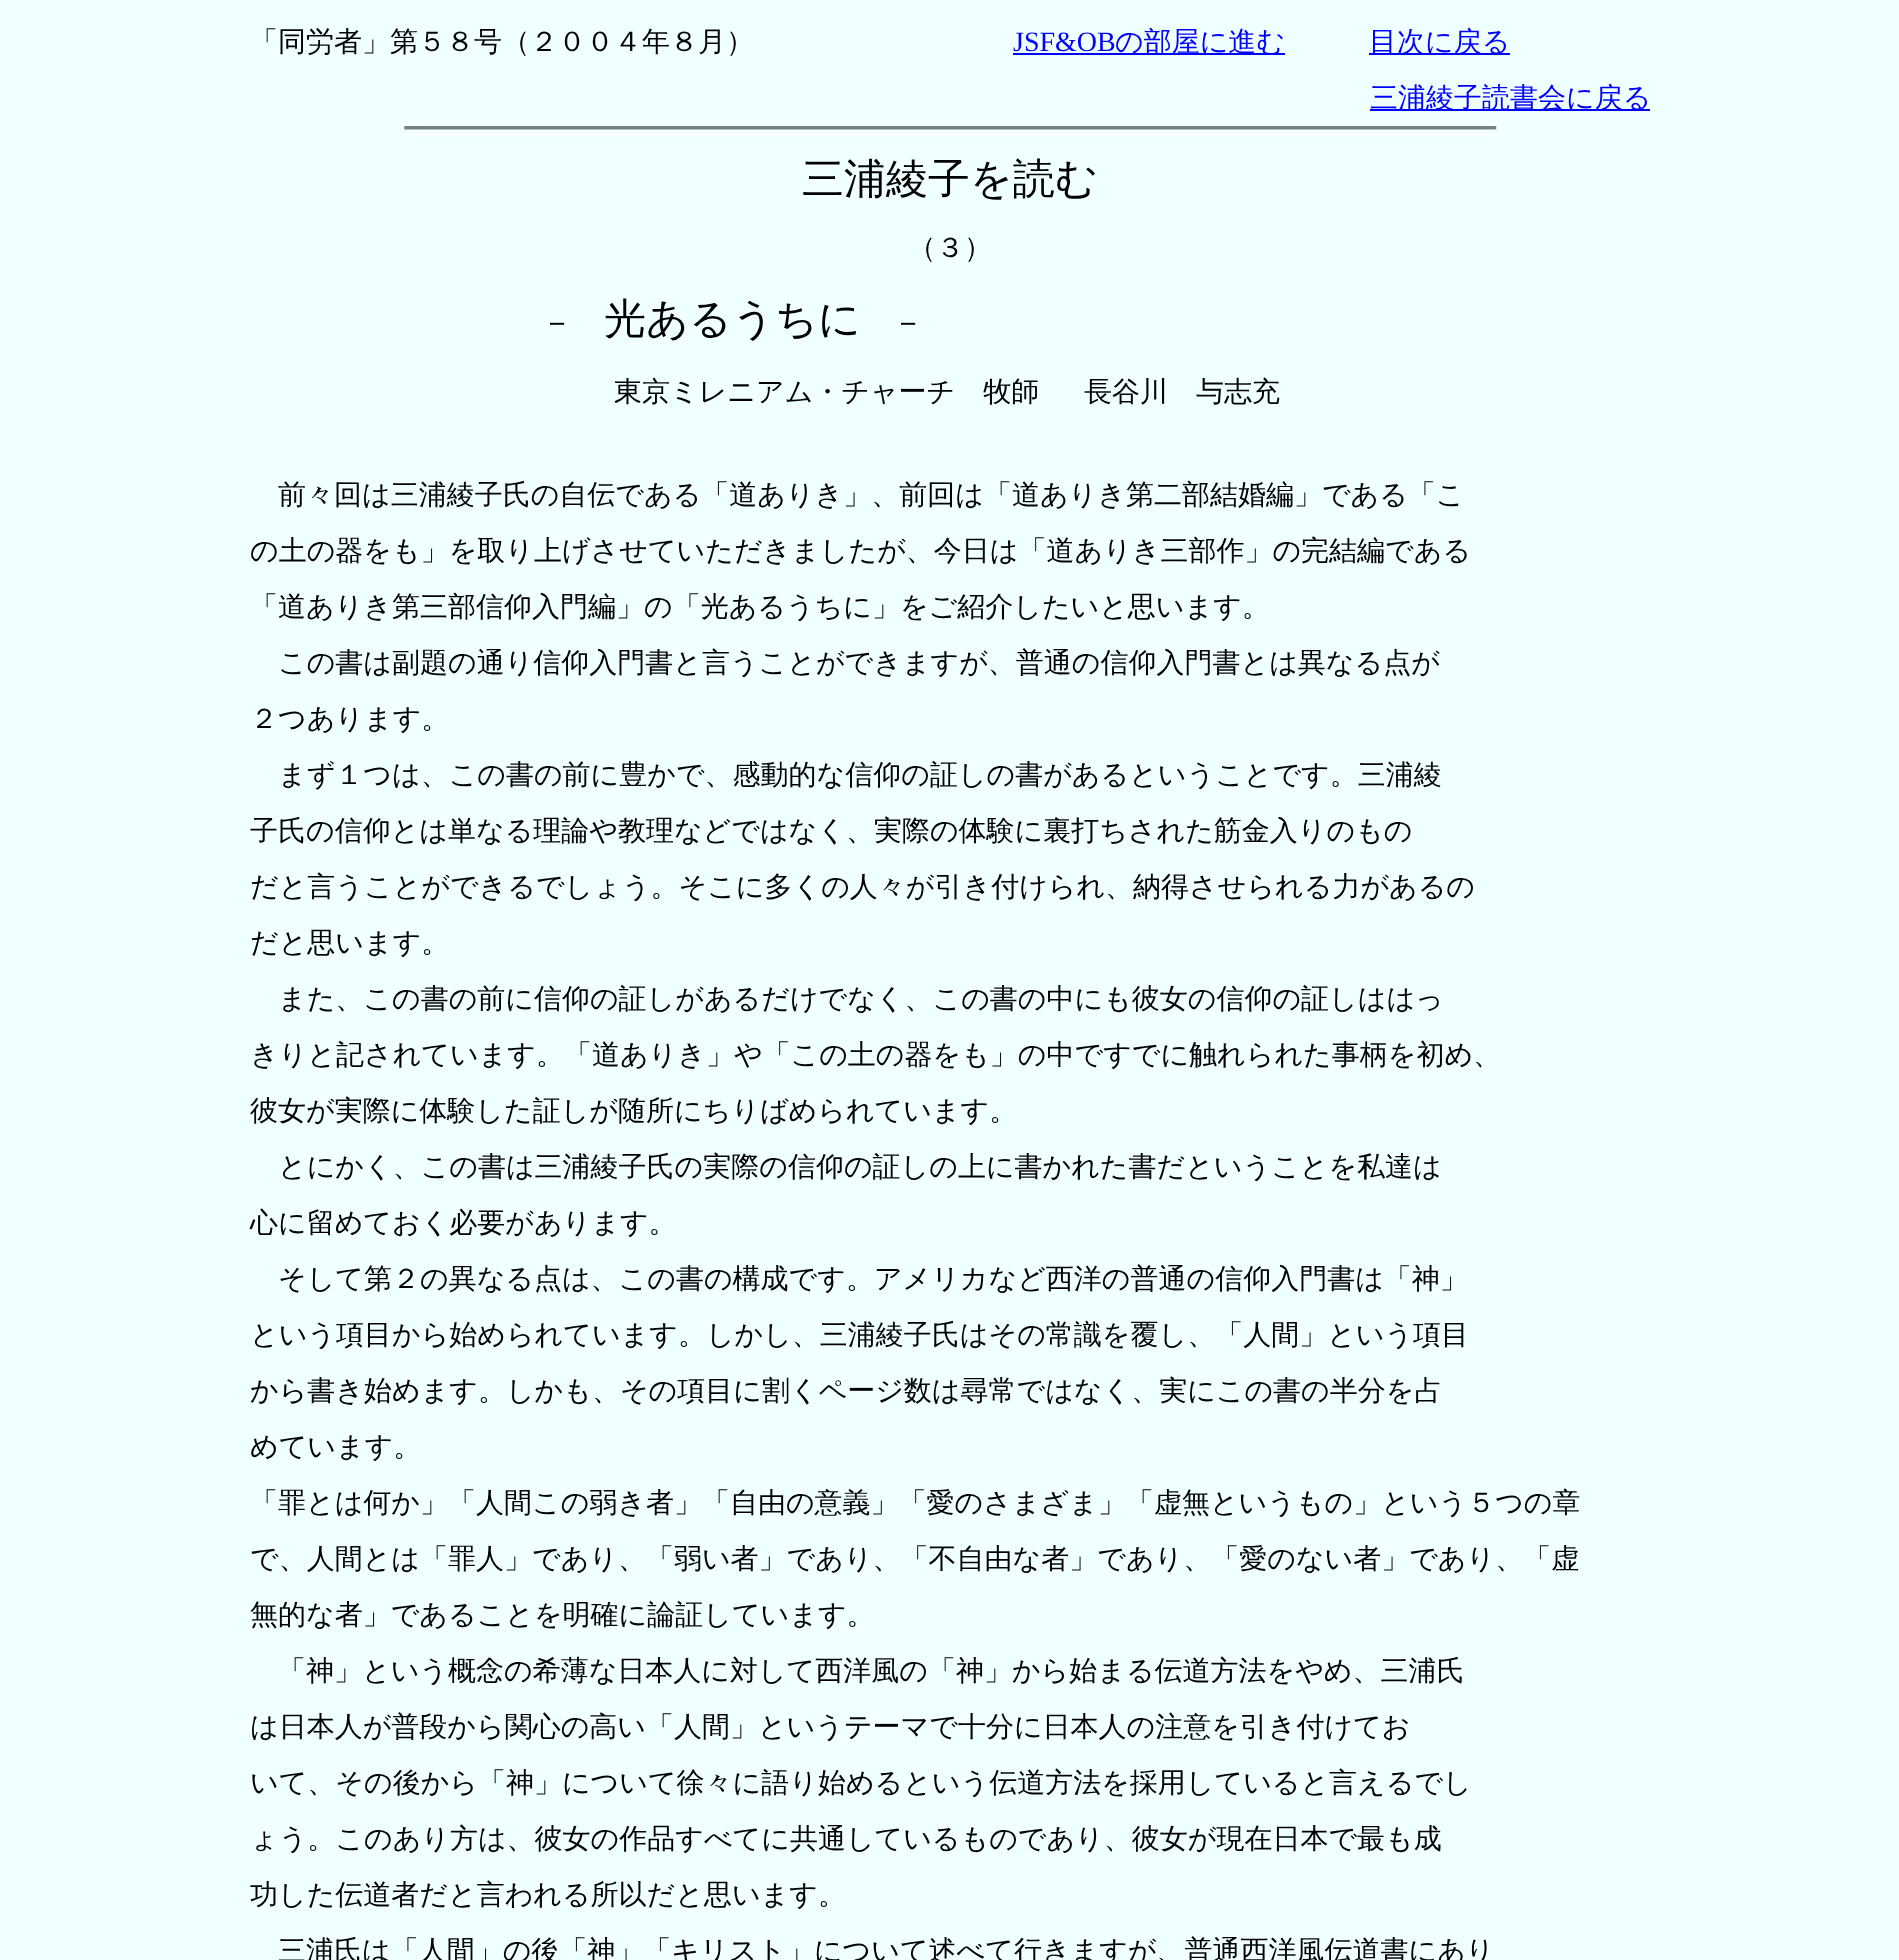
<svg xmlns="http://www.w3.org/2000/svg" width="1899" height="1960">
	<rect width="100%" height="100%" fill="#F0FFFF" />
	<text x="250" y="51" font-family="WenQuanYi Zen Hei" font-size="28" font-weight="500" fill="#000000">「同労者」第５８号（２００４年８月）</text>
	<text x="1013" y="51" font-family="Liberation Serif" font-size="28" fill="#0000FF">JSF&amp;OB</text>
	<rect x="1013" y="53" width="272" height="2" fill="#0000FF" />
	<text x="1115" y="51" font-family="WenQuanYi Zen Hei" font-size="28" font-weight="500" fill="#0000FF">の部屋に進む</text>
	<rect x="1369" y="53" width="141" height="2" fill="#0000FF" />
	<text x="1369" y="51" font-family="WenQuanYi Zen Hei" font-size="28" font-weight="500" fill="#0000FF">目次に戻る</text>
	<rect x="1370" y="109" width="280" height="2" fill="#0000FF" />
	<text x="1370" y="107" font-family="WenQuanYi Zen Hei" font-size="28" font-weight="500" fill="#0000FF">三浦綾子読書会に戻る</text>
	<image x="404" y="126" width="1093" height="11" href="assets/img1.png" />
	<text x="802" y="193" font-family="WenQuanYi Zen Hei" font-size="42" font-weight="500" fill="#000000">三浦綾子を読む</text>
	<text x="908" y="257" font-family="WenQuanYi Zen Hei" font-size="28" font-weight="500" fill="#000000">（３）</text>
	<text x="541" y="333" font-family="WenQuanYi Zen Hei" font-size="32" font-weight="500" fill="#000000">－</text>
	<text x="604" y="333" font-family="WenQuanYi Zen Hei" font-size="42" font-weight="500" fill="#000000">光あるうちに</text>
	<text x="892" y="333" font-family="WenQuanYi Zen Hei" font-size="32" font-weight="500" fill="#000000">－</text>
	<g font-family="WenQuanYi Zen Hei" font-size="28" font-weight="500" fill="#000000">
		<text x="614" y="401">東京ミレニアム・チャーチ　牧師</text>
		<text x="1084" y="401">長谷川　与志充</text>
		<text x="278" y="504">前々回は三浦綾子氏の自伝である「道ありき」、前回は「道ありき第二部結婚編」である「こ</text>
		<text x="250" y="560">の土の器をも」を取り上げさせていただきましたが、今日は「道ありき三部作」の完結編である</text>
		<text x="250" y="616">「道ありき第三部信仰入門編」の「光あるうちに」をご紹介したいと思います。</text>
		<text x="278" y="672">この書は副題の通り信仰入門書と言うことができますが、普通の信仰入門書とは異なる点が</text>
		<text x="250" y="728">２つあります。</text>
		<text x="278" y="784">まず１つは、この書の前に豊かで、感動的な信仰の証しの書があるということです。三浦綾</text>
		<text x="250" y="840">子氏の信仰とは単なる理論や教理などではなく、実際の体験に裏打ちされた筋金入りのもの</text>
		<text x="250" y="896">だと言うことができるでしょう。そこに多くの人々が引き付けられ、納得させられる力があるの</text>
		<text x="250" y="952">だと思います。</text>
		<text x="278" y="1008">また、この書の前に信仰の証しがあるだけでなく、この書の中にも彼女の信仰の証しははっ</text>
		<text x="250" y="1064">きりと記されています。「道ありき」や「この土の器をも」の中ですでに触れられた事柄を初め、</text>
		<text x="250" y="1120">彼女が実際に体験した証しが随所にちりばめられています。</text>
		<text x="278" y="1176">とにかく、この書は三浦綾子氏の実際の信仰の証しの上に書かれた書だということを私達は</text>
		<text x="250" y="1232">心に留めておく必要があります。</text>
		<text x="278" y="1288">そして第２の異なる点は、この書の構成です。アメリカなど西洋の普通の信仰入門書は「神」</text>
		<text x="250" y="1344">という項目から始められています。しかし、三浦綾子氏はその常識を覆し、「人間」という項目</text>
		<text x="250" y="1400">から書き始めます。しかも、その項目に割くページ数は尋常ではなく、実にこの書の半分を占</text>
		<text x="250" y="1456">めています。</text>
		<text x="250" y="1512">「罪とは何か」「人間この弱き者」「自由の意義」「愛のさまざま」「虚無というもの」という５つの章</text>
		<text x="250" y="1568">で、人間とは「罪人」であり、「弱い者」であり、「不自由な者」であり、「愛のない者」であり、「虚</text>
		<text x="250" y="1624">無的な者」であることを明確に論証しています。</text>
		<text x="278" y="1680">「神」という概念の希薄な日本人に対して西洋風の「神」から始まる伝道方法をやめ、三浦氏</text>
		<text x="250" y="1736">は日本人が普段から関心の高い「人間」というテーマで十分に日本人の注意を引き付けてお</text>
		<text x="250" y="1792">いて、その後から「神」について徐々に語り始めるという伝道方法を採用していると言えるでし</text>
		<text x="250" y="1848">ょう。このあり方は、彼女の作品すべてに共通しているものであり、彼女が現在日本で最も成</text>
		<text x="250" y="1904">功した伝道者だと言われる所以だと思います。</text>
		<text x="278" y="1960">三浦氏は「人間」の後「神」「キリスト」について述べて行きますが、普通西洋風伝道書にあり</text>
	</g>
</svg>
